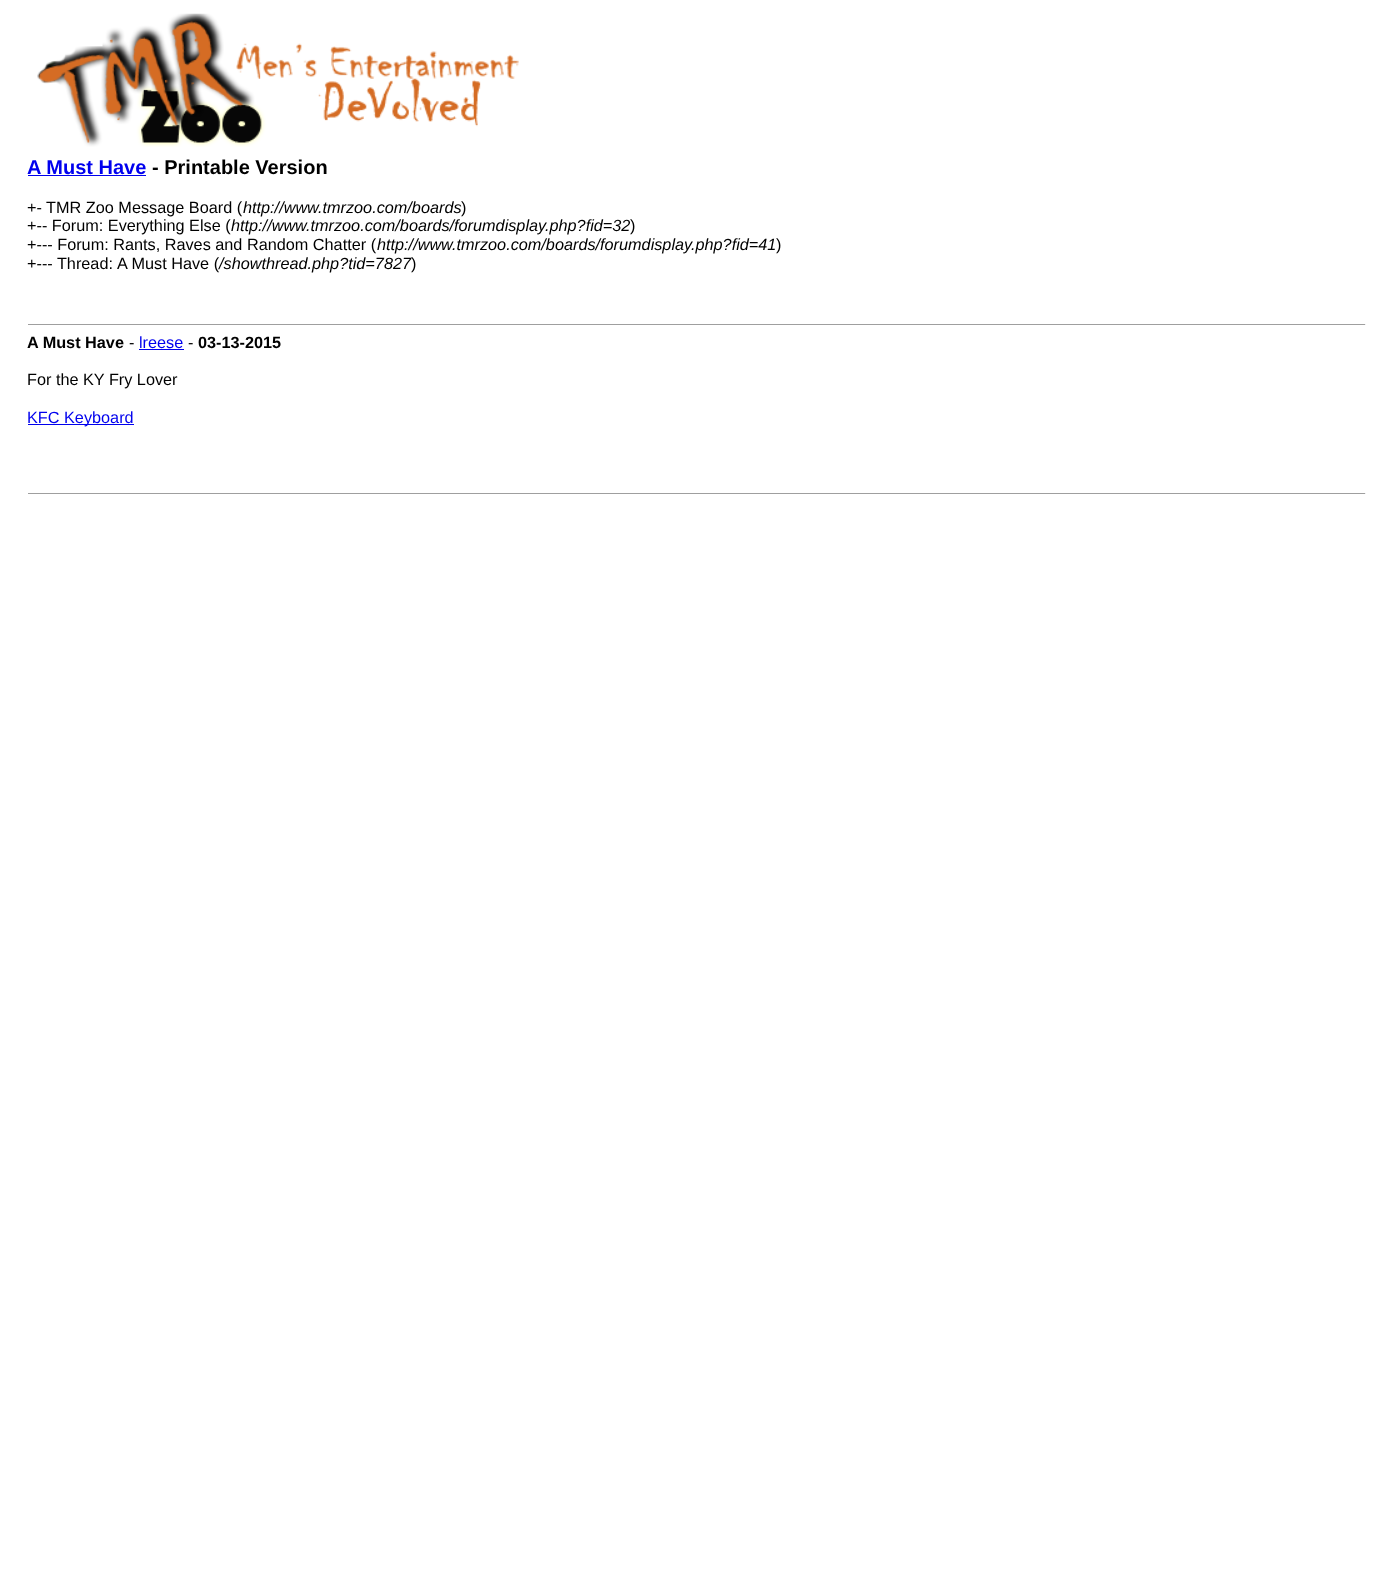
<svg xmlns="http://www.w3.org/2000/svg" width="1393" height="1589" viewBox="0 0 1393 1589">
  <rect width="100%" height="100%" fill="#fff"/>
  <image x="37" y="13" width="482" height="134" href="img/1.png"/>
  <path d="M28 175h118v1H28z" fill="#00e"/>
  <path d="M28 324h1338v1H28z" fill="#9f9f9f"/>
  <path d="M1365 324h1v1H1365z" fill="#eee"/>
  <path d="M139 349h45v1H139z" fill="#00e"/>
  <path d="M28 424h106v1H28z" fill="#00e"/>
  <path d="M28 493h1338v1H28z" fill="#9f9f9f"/>
  <path d="M1365 493h1v1H1365z" fill="#eee"/>
  <text x="27" y="174" font-family="Liberation Sans" font-size="20" font-weight="bold" fill="#00e">A Must Have</text>
  <text x="152" y="174" font-family="Liberation Sans" font-size="20" font-weight="bold" fill="#000">- Printable Version</text>
  <text x="27" y="213" font-family="Liberation Sans" font-size="16.25" fill="#000">+- TMR Zoo Message Board (</text>
  <text x="243" y="213" font-family="Liberation Sans" font-size="16.25" font-style="italic" fill="#000">http://www.tmrzoo.com/boards</text>
  <g font-family="Liberation Sans" font-size="16.25" fill="#000">
    <text x="461" y="213">)</text>
    <text x="27" y="231">+-- Forum: Everything Else (</text>
  </g>
  <text x="231" y="231" font-family="Liberation Sans" font-size="16.25" font-style="italic" fill="#000">http://www.tmrzoo.com/boards/forumdisplay.php?fid=32</text>
  <g font-family="Liberation Sans" font-size="16.25" fill="#000">
    <text x="630" y="231">)</text>
    <text x="27" y="250">+--- Forum: Rants, Raves and Random Chatter (</text>
  </g>
  <text x="377" y="250" font-family="Liberation Sans" font-size="16.25" font-style="italic" fill="#000">http://www.tmrzoo.com/boards/forumdisplay.php?fid=41</text>
  <g font-family="Liberation Sans" font-size="16.25" fill="#000">
    <text x="776" y="250">)</text>
    <text x="27" y="269">+--- Thread:</text>
    <text x="117" y="269">A Must Have (</text>
  </g>
  <text x="219" y="269" font-family="Liberation Sans" font-size="16.25" font-style="italic" fill="#000">/showthread.php?tid=7827</text>
  <text x="411" y="269" font-family="Liberation Sans" font-size="16.25" fill="#000">)</text>
  <text x="27" y="348" font-family="Liberation Sans" font-size="16.25" font-weight="bold" fill="#000">A Must Have</text>
  <text x="129" y="348" font-family="Liberation Sans" font-size="16.25" fill="#000">-</text>
  <text x="139" y="348" font-family="Liberation Sans" font-size="16.25" fill="#00e">lreese</text>
  <text x="188" y="348" font-family="Liberation Sans" font-size="16.25" fill="#000">-</text>
  <text x="198" y="348" font-family="Liberation Sans" font-size="16.25" font-weight="bold" fill="#000">03-13-2015</text>
  <text x="27" y="385" font-family="Liberation Sans" font-size="16.25" fill="#000">For the KY Fry Lover</text>
  <text x="27" y="423" font-family="Liberation Sans" font-size="16.25" fill="#00e">KFC Keyboard</text>
</svg>
